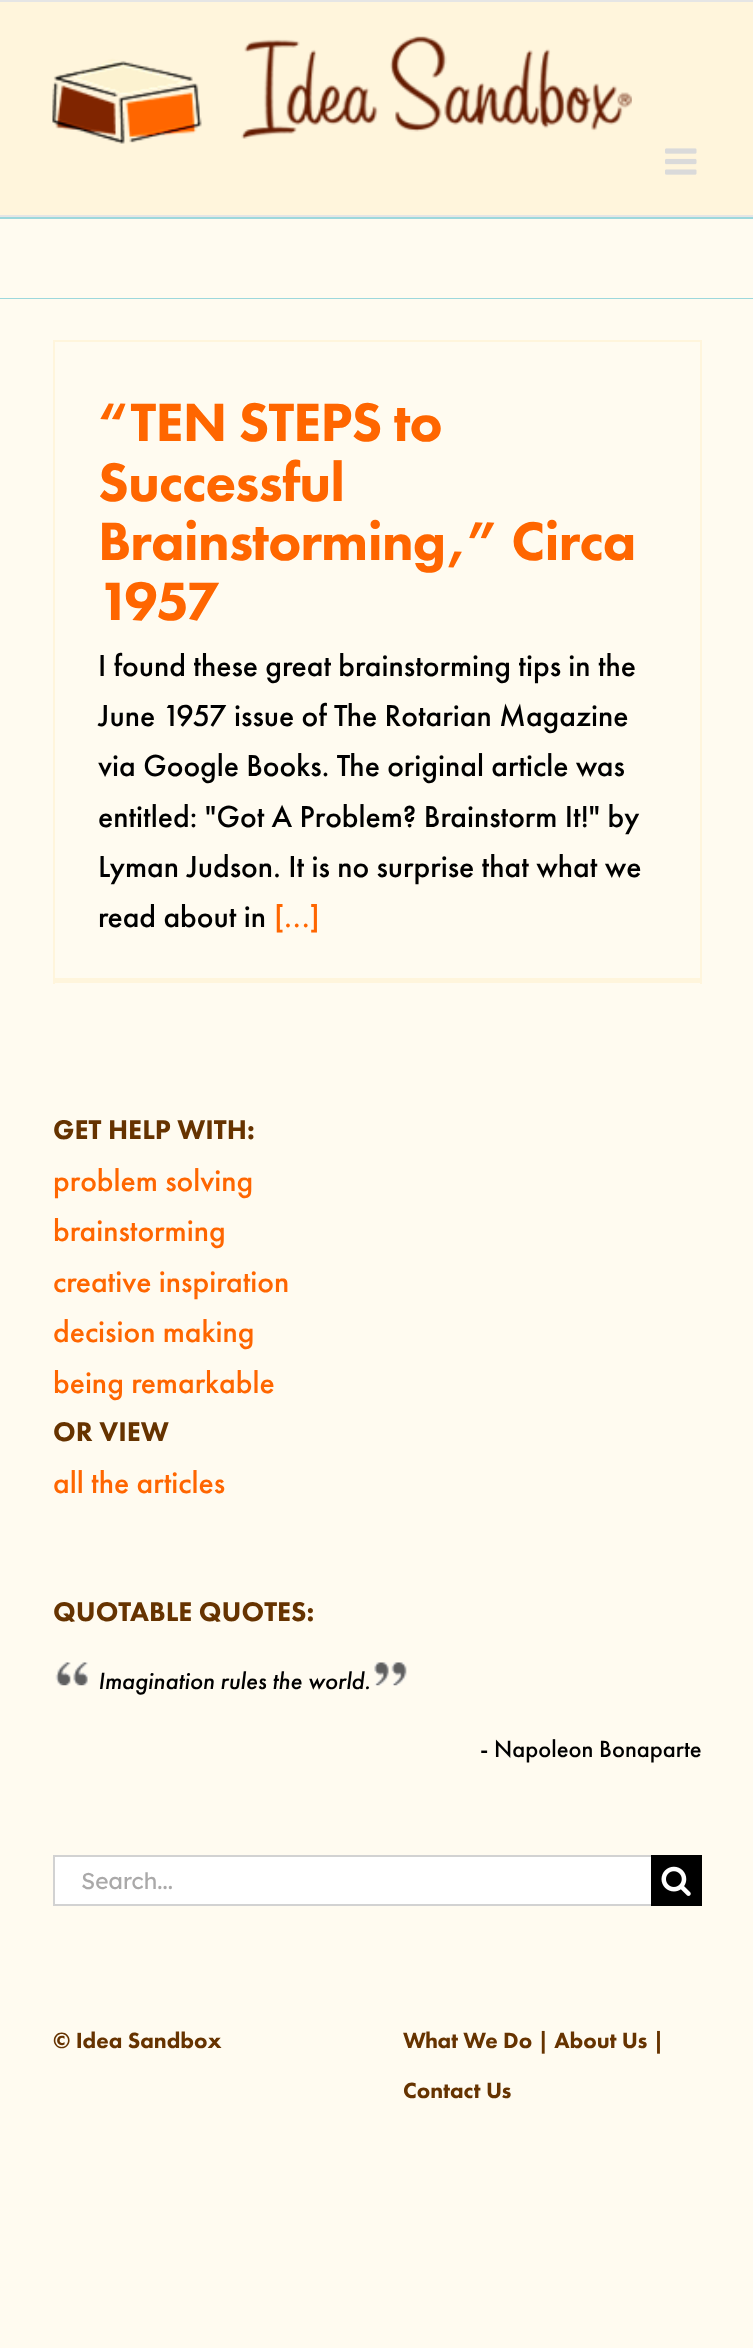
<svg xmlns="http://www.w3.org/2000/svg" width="753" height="2348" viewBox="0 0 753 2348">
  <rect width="100%" height="100%" fill="#fffbf0"/>
  <path d="M0 0h753v2H0z" fill="#e5e5e5"/>
  <path d="M0 2h753v213H0z" fill="#fff5dc"/>
  <path d="M0 215h753v2H0z" fill="#e5e5e5"/>
  <image x="52" y="36" width="580" height="108" href="img/1.png"/>
  <image x="665" y="148" width="32" height="27" href="img/2.png"/>
  <path d="M0 217h753v2H0z" fill="#9dd8dc"/>
  <path d="M0 298h753v1H0z" fill="#9dd8dc"/>
  <path d="M53 340h649v2H53z" fill="#fff5dc"/>
  <path d="M700 340h2v644H700z" fill="#fff5dc"/>
  <path d="M53 978h649v5H53z" fill="#fff5dc"/>
  <path d="M53 340h2v644H53z" fill="#fff5dc"/>
  <image x="55" y="1662" width="33" height="24" href="img/3.png"/>
  <image x="374" y="1662" width="33" height="24" href="img/4.png"/>
  <path d="M55 1857h596v47H55z" fill="#fff"/>
  <path d="M53 1855h598v2H53z" fill="#d2d2d2"/>
  <path d="M53 1904h598v2H53z" fill="#d2d2d2"/>
  <path d="M53 1855h2v51H53z" fill="#d2d2d2"/>
  <path d="M651 1855h51v51H651z" fill="#000"/>
  <image x="661" y="1866" width="30" height="30" href="img/5.png"/>
  <g font-family="Futura PT" font-size="56" font-weight="900" letter-spacing="-0.9" fill="#f60">
    <text x="98" y="441">“TEN STEPS to</text>
    <text x="98" y="501">Successful</text>
    <text x="98" y="560">Brainstorming,” Circa</text>
    <text x="98" y="620">1957</text>
  </g>
  <g font-family="Futura PT" font-size="31.5" font-weight="500" fill="#000">
    <text x="98" y="676">I found these great brainstorming tips in the</text>
    <text x="98" y="726">June 1957 issue of The Rotarian Magazine</text>
    <text x="98" y="776">via Google Books. The original article was</text>
    <text x="98" y="827">entitled: "Got A Problem? Brainstorm It!" by</text>
    <text x="98" y="877">Lyman Judson. It is no surprise that what we</text>
    <text x="98" y="927">read about in</text>
  </g>
  <text x="274" y="927" font-family="Futura PT" font-size="31.5" font-weight="500" fill="#f60">[...]</text>
  <text x="53" y="1139" font-family="Futura PT" font-size="28" font-weight="900" fill="#630">GET HELP WITH:</text>
  <g font-family="Futura PT" font-size="31.5" font-weight="500" fill="#f60">
    <text x="53" y="1191">problem solving</text>
    <text x="53" y="1241">brainstorming</text>
    <text x="53" y="1292">creative inspiration</text>
    <text x="53" y="1342">decision making</text>
    <text x="53" y="1393">being remarkable</text>
  </g>
  <text x="53" y="1441" font-family="Futura PT" font-size="28" font-weight="900" fill="#630">OR VIEW</text>
  <text x="53" y="1493" font-family="Futura PT" font-size="31.5" font-weight="500" fill="#f60">all the articles</text>
  <text x="53" y="1621" font-family="Futura PT" font-size="28" font-weight="900" fill="#630">QUOTABLE QUOTES:</text>
  <text x="98" y="1689" font-family="Futura PT" font-size="24.5" font-weight="500" font-style="italic" fill="#000">Imagination rules the world.</text>
  <text x="480" y="1757" font-family="Futura PT" font-size="24.5" font-weight="500" fill="#000">- Napoleon Bonaparte</text>
  <text x="81" y="1889" font-family="Lexend Deca" font-size="22.75" fill="#aaa9a9">Search...</text>
  <g font-family="Futura PT" font-size="22.75" font-weight="900" fill="#630">
    <text x="53" y="2048">© Idea Sandbox</text>
    <text x="403" y="2048">What We Do | About Us |</text>
    <text x="403" y="2098">Contact Us</text>
  </g>
</svg>
